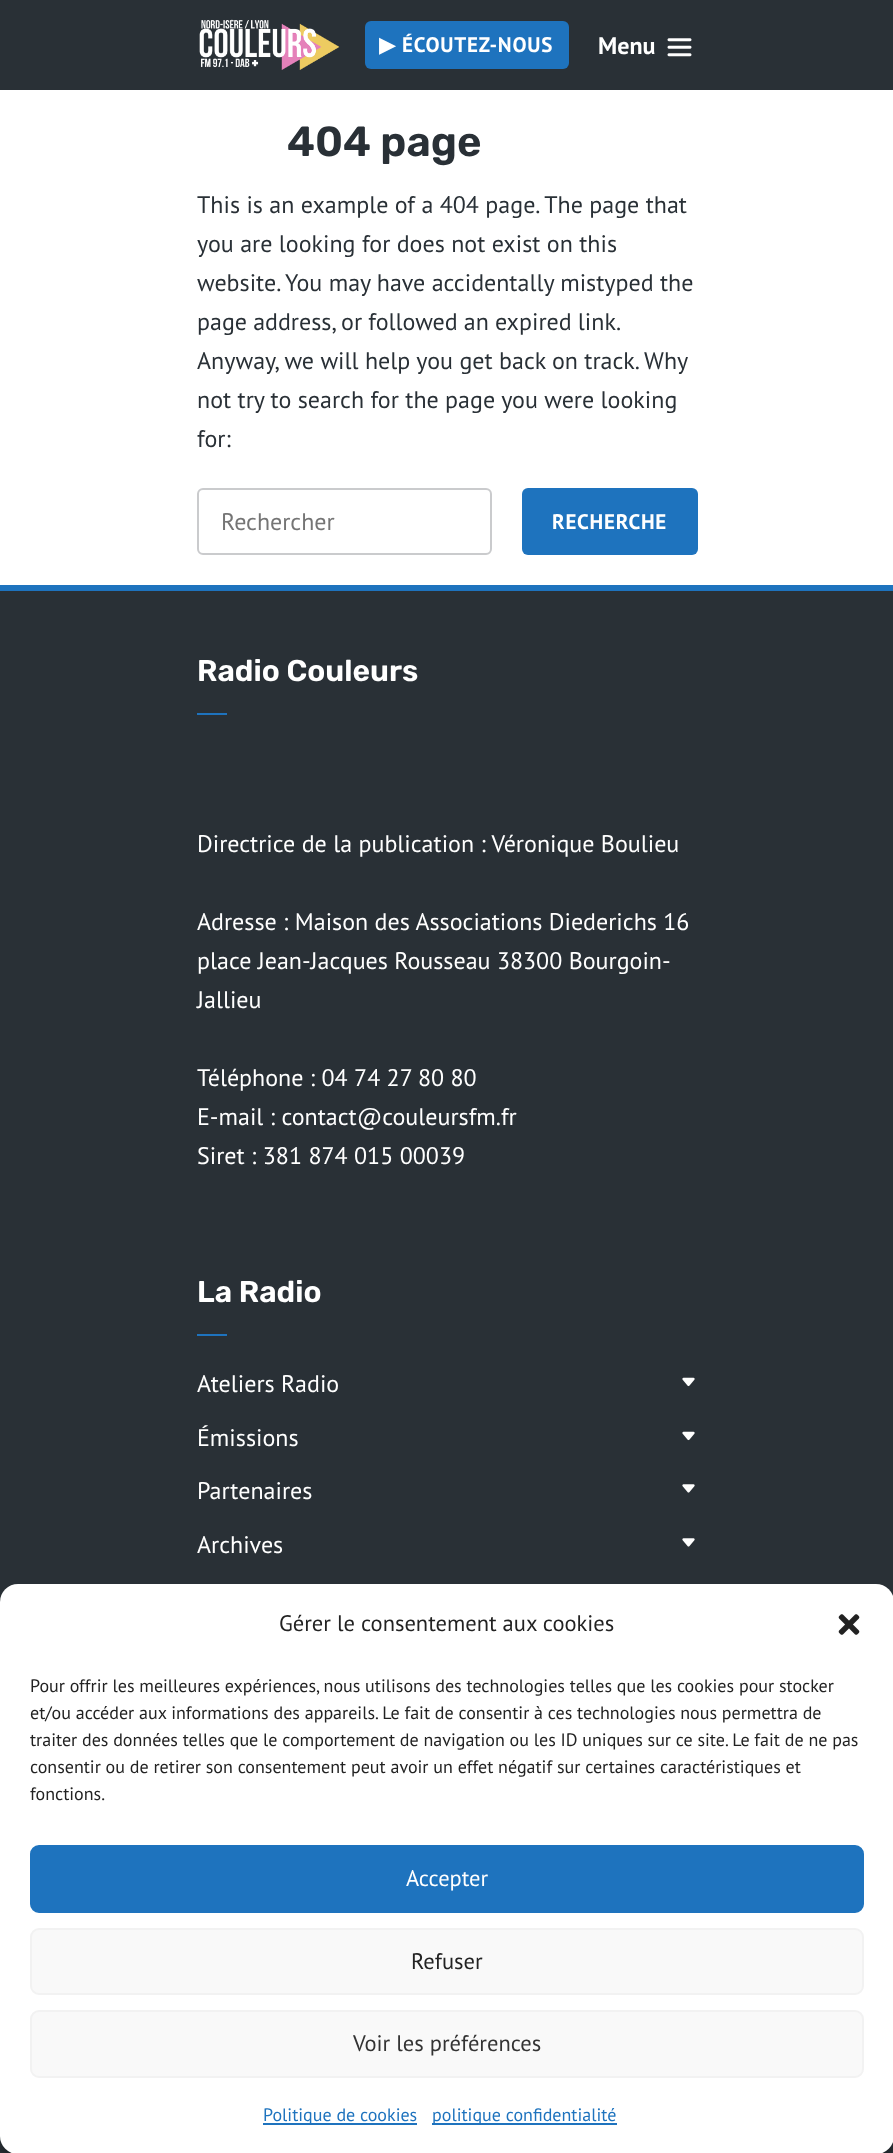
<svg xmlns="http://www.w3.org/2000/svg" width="893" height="2153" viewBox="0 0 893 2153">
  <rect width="100%" height="100%" fill="#fff"/>
  <path d="M0 0h893v90H0z" fill="#293036"/>
  <image x="199" y="19" width="141" height="51" href="img/1.png"/>
  <rect x="365" y="21" width="204" height="48" rx="6" fill="#1e73be"/>
  <image x="667" y="38" width="25" height="19" href="img/2.png"/>
  <rect x="198" y="489" width="293" height="65" rx="5" fill="none" stroke="#cacbcd" stroke-width="2"/>
  <rect x="522" y="488" width="176" height="67" rx="6" fill="#1e73be"/>
  <path d="M0 591h893v1562H0z" fill="#293036"/>
  <path d="M0 585h893v6H0z" fill="#1e73be"/>
  <path d="M197 713h30v2H197z" fill="#1e73be"/>
  <path d="M197 1334h30v2H197z" fill="#1e73be"/>
  <image x="682" y="1377" width="13" height="10" href="img/3.png"/>
  <image x="682" y="1431" width="13" height="10" href="img/3.png"/>
  <image x="682" y="1484" width="13" height="9" href="img/4.png"/>
  <image x="682" y="1538" width="13" height="9" href="img/4.png"/>
  <rect y="1593" width="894" height="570" rx="18" fill="#0000003b" filter="blur(4.5px)"/>
  <rect y="1584" width="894" height="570" rx="18" fill="#fff"/>
  <image x="838" y="1614" width="22" height="21" href="img/5.png"/>
  <rect x="31" y="1846" width="832" height="66" rx="8" fill="#1e73be" stroke="#1e73be" stroke-width="2"/>
  <rect x="31" y="1929" width="832" height="65" rx="8" fill="#f9f9f9" stroke="#f2f2f2" stroke-width="2"/>
  <rect x="31" y="2011" width="832" height="66" rx="8" fill="#f9f9f9" stroke="#f2f2f2" stroke-width="2"/>
  <path d="M263 2123h154v2H263z" fill="#1e73be"/>
  <path d="M432 2123h185v2H432z" fill="#1e73be"/>
  <text x="379" y="52" font-family="DejaVu Sans" font-size="21" font-weight="bold" letter-spacing="0.75" fill="#fff">▶︎</text>
  <text x="402" y="52" font-family="PT Sans" font-size="21" font-weight="bold" letter-spacing="0.75" fill="#fff">ÉCOUTEZ-NOUS</text>
  <text x="598" y="54" font-family="PT Sans" font-size="24" font-weight="bold" fill="#fff">Menu</text>
  <text x="287" y="156" font-family="Rubik" font-size="42" font-weight="600" fill="#293036">404 page</text>
  <g font-family="PT Sans" font-size="24" fill="#293036">
    <text x="197" y="213">This is an example of a 404 page. The page that</text>
    <text x="197" y="252">you are looking for does not exist on this</text>
    <text x="197" y="291">website. You may have accidentally mistyped the</text>
    <text x="197" y="330" word-spacing="-0.25">page address, or followed an expired link.</text>
    <text x="197" y="369">Anyway, we will help you get back on track. Why</text>
    <text x="197" y="408">not try to search for the page you were looking</text>
    <text x="197" y="447">for:</text>
  </g>
  <text x="221" y="530" font-family="PT Sans" font-size="24" fill="#757575">Rechercher</text>
  <text x="552" y="529" font-family="PT Sans" font-size="21" font-weight="bold" letter-spacing="0.75" fill="#fff">RECHERCHE</text>
  <text x="197" y="681" font-family="Rubik" font-size="30" font-weight="600" fill="#fff">Radio Couleurs</text>
  <g font-family="PT Sans" font-size="24" fill="#fff">
    <text x="197" y="852">Directrice de la publication : Véronique Boulieu</text>
    <text x="197" y="930">Adresse : Maison des Associations Diederichs 16</text>
    <text x="197" y="969">place Jean-Jacques Rousseau 38300 Bourgoin-</text>
    <text x="197" y="1008">Jallieu</text>
    <text x="197" y="1086">Téléphone : 04 74 27 80 80</text>
    <text x="197" y="1125">E-mail : contact@couleursfm.fr</text>
    <text x="197" y="1164">Siret : 381 874 015 00039</text>
  </g>
  <text x="197" y="1302" font-family="Rubik" font-size="30" font-weight="600" fill="#fff">La Radio</text>
  <g font-family="PT Sans" font-size="24" fill="#fff">
    <text x="197" y="1392">Ateliers Radio</text>
    <text x="197" y="1446">Émissions</text>
    <text x="197" y="1499">Partenaires</text>
    <text x="197" y="1553">Archives</text>
  </g>
  <text x="279" y="1631" font-family="PT Sans" font-size="22.5" fill="#222">Gérer le consentement aux cookies</text>
  <g font-family="PT Sans" font-size="18" fill="#222">
    <text x="30" y="1692">Pour offrir les meilleures expériences, nous utilisons des technologies telles que les cookies pour stocker</text>
    <text x="30" y="1719">et/ou accéder aux informations des appareils. Le fait de consentir à ces technologies nous permettra de</text>
    <text x="30" y="1746">traiter des données telles que le comportement de navigation ou les ID uniques sur ce site. Le fait de ne pas</text>
    <text x="30" y="1773">consentir ou de retirer son consentement peut avoir un effet négatif sur certaines caractéristiques et</text>
    <text x="30" y="1800">fonctions.</text>
  </g>
  <text x="406" y="1886" font-family="PT Sans" font-size="22.5" fill="#fff">Accepter</text>
  <text x="411" y="1969" font-family="PT Sans" font-size="22.5" fill="#222">Refuser</text>
  <text x="353" y="2051" font-family="PT Sans" font-size="22.5" fill="#333">Voir les préférences</text>
  <g font-family="PT Sans" font-size="18" fill="#1e73be">
    <text x="263" y="2121">Politique de cookies</text>
    <text x="432" y="2121">politique confidentialité</text>
  </g>
</svg>
